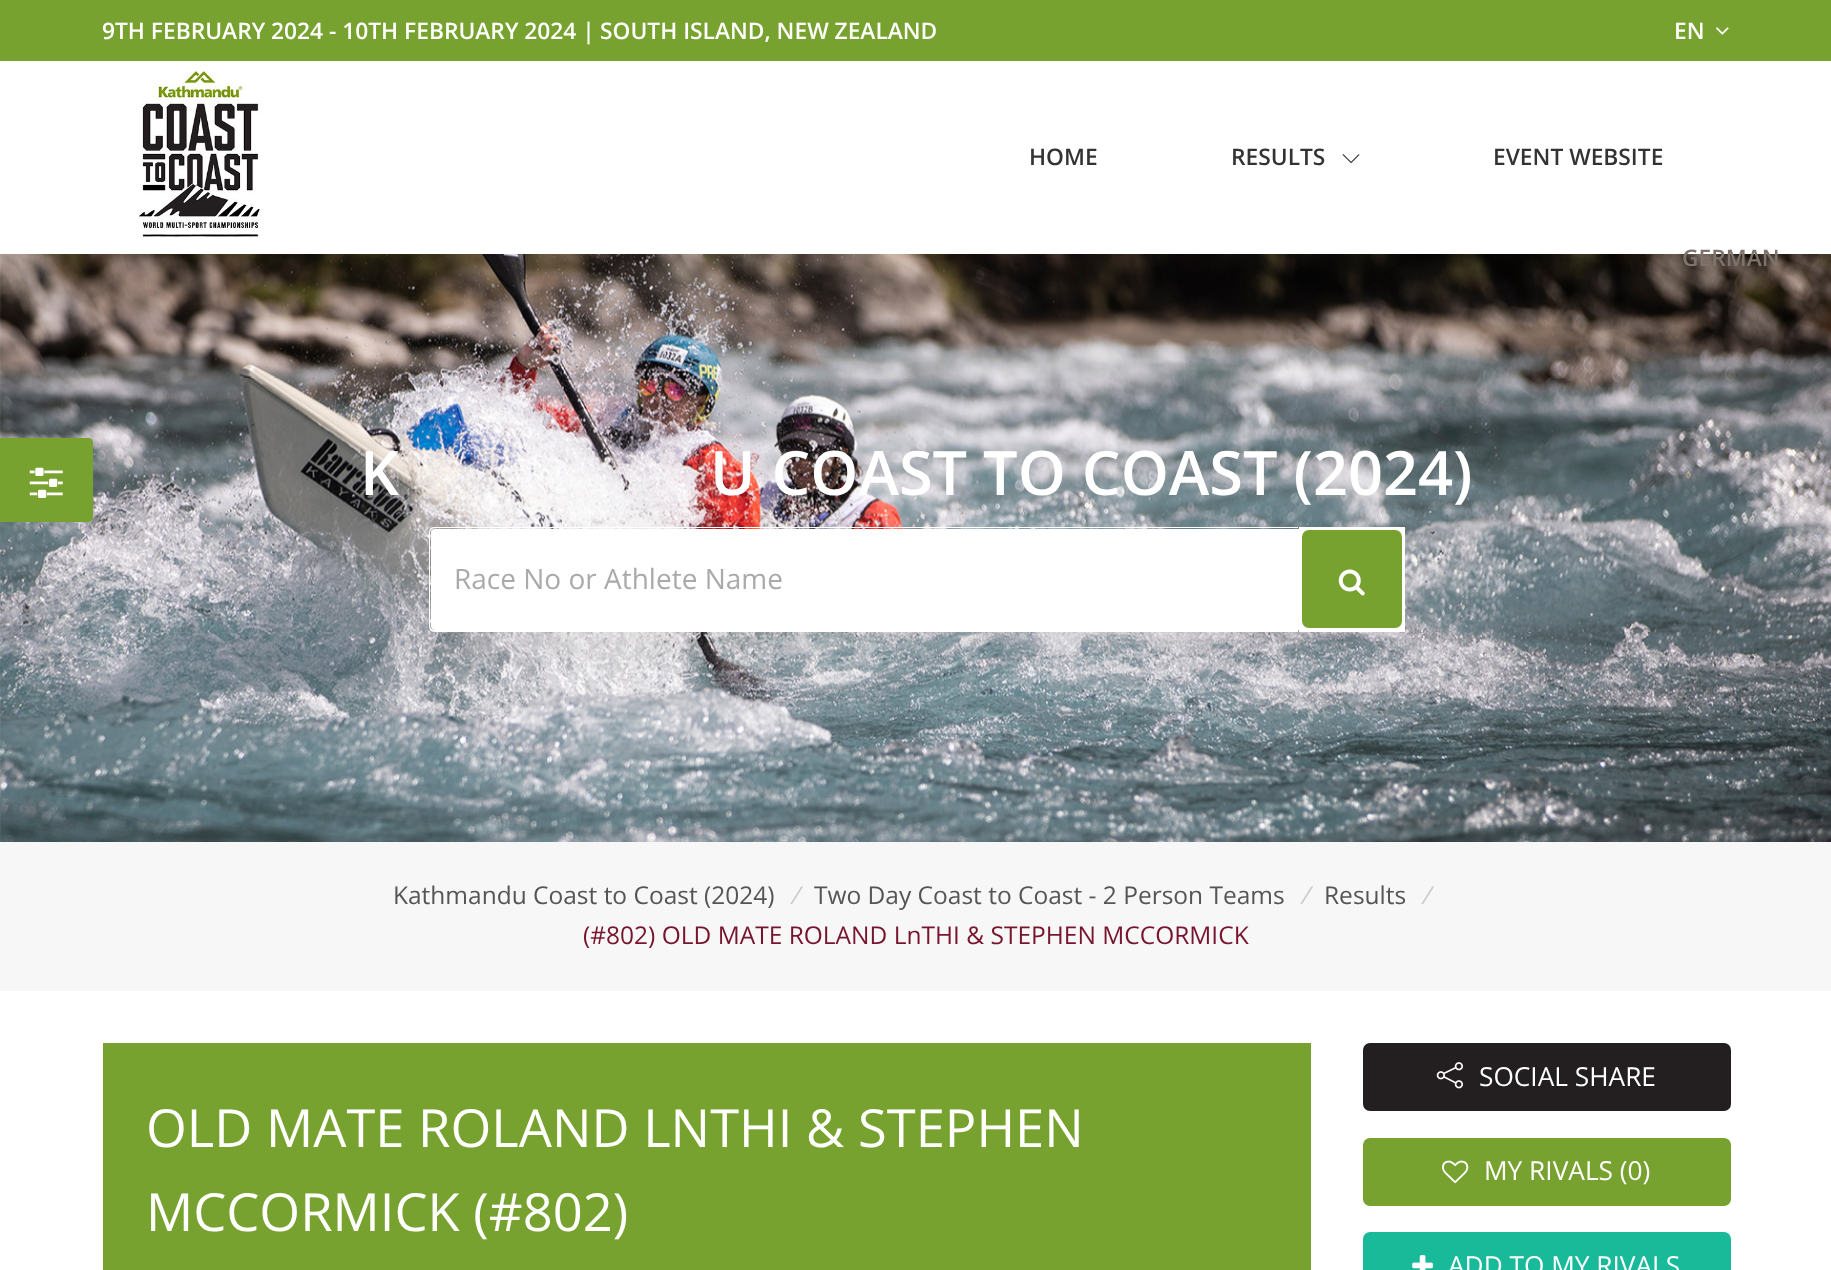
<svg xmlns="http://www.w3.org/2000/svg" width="1831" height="1270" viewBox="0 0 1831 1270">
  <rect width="100%" height="100%" fill="#fff"/>
  <path d="M0 0h1831v61H0z" fill="#78a22f"/>
  <image x="1716" y="27" width="13" height="8" href="img/1.png"/>
  <image x="138" y="70" width="123" height="168" href="img/2.png"/>
  <image x="1342" y="154" width="18" height="9" href="img/3.png"/>
  <image x="0" y="254" width="1831" height="588" href="img/5.png"/>
  <path d="M0 438H88C91 438 93 440 93 443V517C93 520 91 522 88 522H0Z" fill="#78a22f"/>
  <image x="29" y="467" width="34" height="31" href="img/4.png"/>
  <path d="M450 583h934v63H450z" fill="#00000017" filter="blur(22px)"/>
  <path d="M435 529H1299V630H435C433 630 431 628 431 626V533C431 531 433 529 435 529Z" fill="#fff"/>
  <path d="M435 527H1298V632H435C431 632 429 629 429 626V533C429 529 431 527 435 527ZM435 528H1298V630H435C432 630 430 628 430 626V533C430 530 432 528 435 528Z" fill="#fff" fill-rule="evenodd"/>
  <path d="M1299 527h106v105H1299z" fill="#fff"/>
  <rect x="1302" y="530" width="100" height="98" rx="7" fill="#78a22f"/>
  <image x="1338" y="569" width="27" height="27" href="img/6.png"/>
  <path d="M0 842h1831v149H0z" fill="#f7f7f7"/>
  <path d="M103 1043h1208v227H103z" fill="#78a22f"/>
  <rect x="1363" y="1043" width="368" height="68" rx="7" fill="#231f20"/>
  <image x="1436" y="1062" width="27" height="27" href="img/7.png"/>
  <rect x="1363" y="1138" width="368" height="68" rx="7" fill="#78a22f"/>
  <image x="1442" y="1160" width="27" height="24" href="img/8.png"/>
  <rect x="1363" y="1232" width="368" height="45" rx="7" fill="#19ba9a"/>
  <image x="1412" y="1255" width="21" height="15" href="img/9.png"/>
  <g font-family="Open Sans" font-size="22.75" font-weight="600" fill="#fff">
    <text x="102" y="39">9TH FEBRUARY 2024 - 10TH FEBRUARY 2024 |</text>
    <text x="600" y="39">SOUTH ISLAND, NEW ZEALAND</text>
    <text x="1674" y="39">EN</text>
  </g>
  <text x="1682" y="266" font-family="Open Sans" font-size="22.75" font-weight="600" fill="#7d746e">GERMAN</text>
  <g font-family="Open Sans" font-size="22.75" font-weight="600" fill="#333">
    <text x="1029" y="165">HOME</text>
    <text x="1231" y="165">RESULTS</text>
    <text x="1493" y="165">EVENT WEBSITE</text>
  </g>
  <g font-family="Open Sans" font-size="61.25" font-weight="600" fill="#fff">
    <text x="360" y="495">K</text>
    <text x="710" y="495">U COAST TO COAST (2024)</text>
  </g>
  <text x="454" y="589" font-family="Open Sans" font-size="28" fill="#aaa">Race No or Athlete Name</text>
  <text x="393" y="904" font-family="Open Sans" font-size="24.5" fill="#555">Kathmandu Coast to Coast (2024)</text>
  <text x="790" y="904" font-family="Open Sans" font-size="24.5" font-style="italic" fill="#ccc">/</text>
  <text x="814" y="904" font-family="Open Sans" font-size="24.5" fill="#555">Two Day Coast to Coast - 2 Person Teams</text>
  <text x="1300" y="904" font-family="Open Sans" font-size="24.5" font-style="italic" fill="#ccc">/</text>
  <text x="1324" y="904" font-family="Open Sans" font-size="24.5" fill="#555">Results</text>
  <text x="1421" y="904" font-family="Open Sans" font-size="24.5" font-style="italic" fill="#ccc">/</text>
  <text x="583" y="944" font-family="Open Sans" font-size="24.5" fill="#77142e">(#802) OLD MATE ROLAND LnTHI &amp; STEPHEN MCCORMICK</text>
  <g font-family="Open Sans" font-size="52.5" fill="#fff">
    <text x="146" y="1147">OLD MATE ROLAND LNTHI &amp; STEPHEN</text>
    <text x="146" y="1231">MCCORMICK (#802)</text>
  </g>
  <g font-family="Open Sans" font-size="26.25" fill="#fff">
    <text x="1479" y="1086">SOCIAL SHARE</text>
    <text x="1484" y="1180">MY RIVALS (0)</text>
    <text x="1448" y="1275">ADD TO MY RIVALS</text>
  </g>
</svg>
